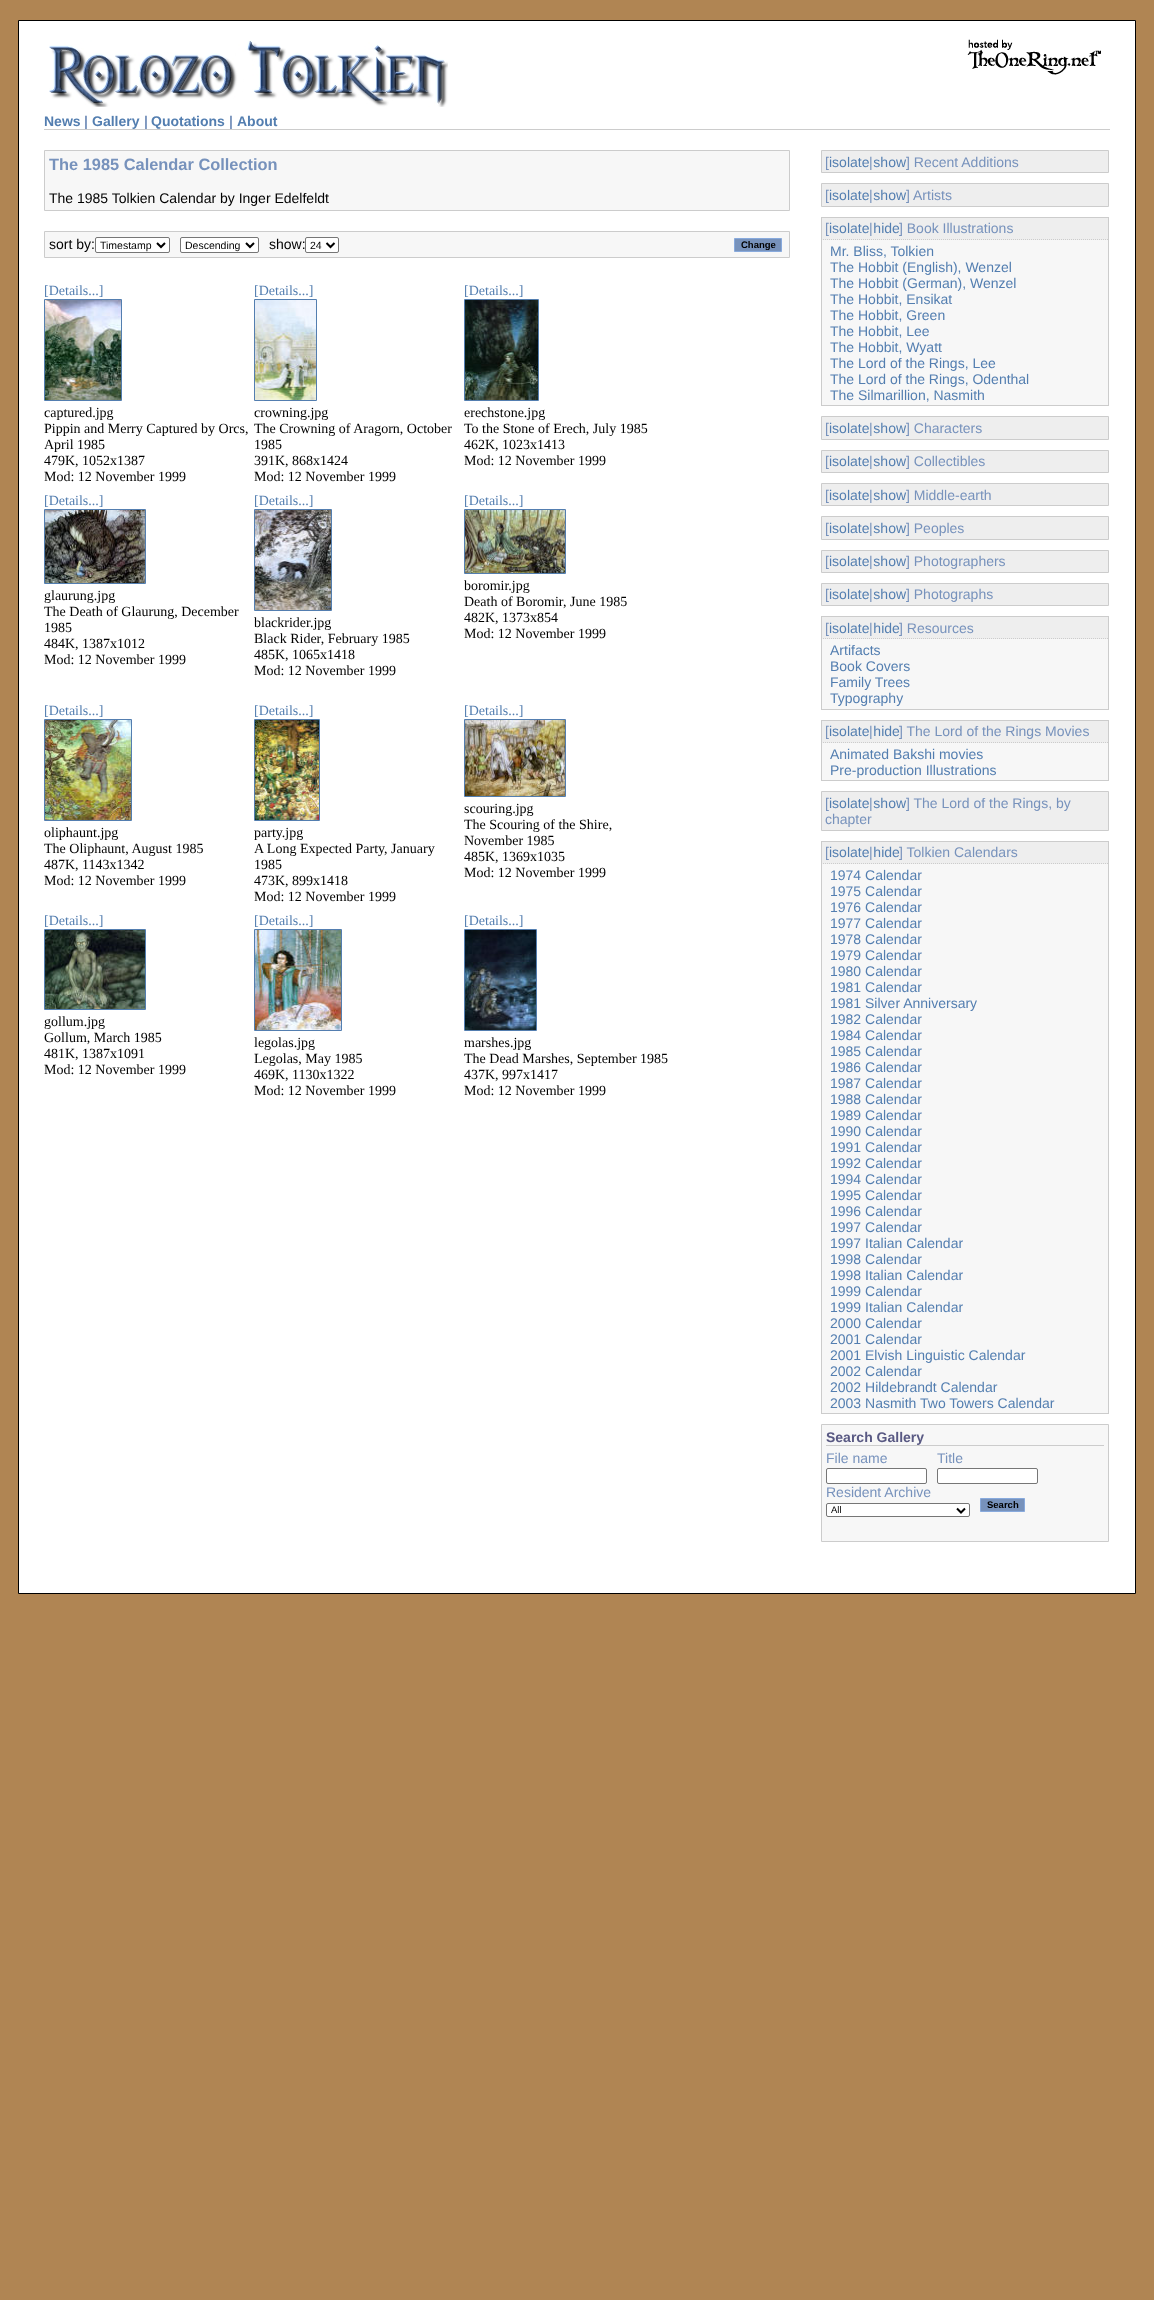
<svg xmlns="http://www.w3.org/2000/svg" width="1154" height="2300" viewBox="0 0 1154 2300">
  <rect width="100%" height="100%" fill="#b08553"/>
  <path d="M18.5 20.5h1117v1573H18.5z" fill="#fff" stroke="#000"/>
  <image x="49" y="40" width="399" height="67" href="img/1.png"/>
  <image x="967" y="39" width="134" height="36" href="img/2.png"/>
  <path d="M44 129h1066v1H44z" fill="#ccc"/>
  <path d="M44.5 150.5h745v60H44.5z" fill="#f7f7f7" stroke="#ccc"/>
  <path d="M44.5 231.5h745v26H44.5z" fill="#f7f7f7" stroke="#ccc"/>
  <rect x="95.5" y="237.5" width="74" height="15" rx="1.5" fill="#fff" stroke="#767676"/>
  <path d="M157 243L161 247L165 243" fill="none" stroke="#000" stroke-width="2"/>
  <rect x="180.5" y="237.5" width="78" height="15" rx="1.5" fill="#fff" stroke="#767676"/>
  <path d="M246 243L250 247L254 243" fill="none" stroke="#000" stroke-width="2"/>
  <rect x="305.5" y="237.5" width="33" height="15" rx="1.5" fill="#fff" stroke="#767676"/>
  <path d="M326.5 243L330.5 247L334.5 243" fill="none" stroke="#000" stroke-width="2"/>
  <path d="M734.5 238.5h47v13H734.5z" fill="#7792bc" stroke="#8ad"/>
  <path d="M44.5 299.5h77v101H44.5z" fill="none" stroke="#537eb0"/>
  <image x="45" y="300" width="76" height="100" href="img/3.png"/>
  <path d="M254.5 299.5h62v101H254.5z" fill="none" stroke="#537eb0"/>
  <image x="255" y="300" width="61" height="100" href="img/4.png"/>
  <path d="M464.5 299.5h74v101H464.5z" fill="none" stroke="#537eb0"/>
  <image x="465" y="300" width="73" height="100" href="img/5.png"/>
  <path d="M44.5 509.5h101v74H44.5z" fill="none" stroke="#537eb0"/>
  <image x="45" y="510" width="100" height="73" href="img/6.png"/>
  <path d="M254.5 509.5h77v101H254.5z" fill="none" stroke="#537eb0"/>
  <image x="255" y="510" width="76" height="100" href="img/7.png"/>
  <path d="M464.5 509.5h101v64H464.5z" fill="none" stroke="#537eb0"/>
  <image x="465" y="510" width="100" height="63" href="img/8.png"/>
  <path d="M44.5 719.5h87v101H44.5z" fill="none" stroke="#537eb0"/>
  <image x="45" y="720" width="86" height="100" href="img/9.png"/>
  <path d="M254.5 719.5h65v101H254.5z" fill="none" stroke="#537eb0"/>
  <image x="255" y="720" width="64" height="100" href="img/10.png"/>
  <path d="M464.5 719.5h101v77H464.5z" fill="none" stroke="#537eb0"/>
  <image x="465" y="720" width="100" height="76" href="img/11.png"/>
  <path d="M44.5 929.5h101v80H44.5z" fill="none" stroke="#537eb0"/>
  <image x="45" y="930" width="100" height="79" href="img/12.png"/>
  <path d="M254.5 929.5h87v101H254.5z" fill="none" stroke="#537eb0"/>
  <image x="255" y="930" width="86" height="100" href="img/13.png"/>
  <path d="M464.5 929.5h72v101H464.5z" fill="none" stroke="#537eb0"/>
  <image x="465" y="930" width="71" height="100" href="img/14.png"/>
  <path d="M821.5 150.5h287v22H821.5z" fill="#eee" stroke="#ccc"/>
  <path d="M821.5 183.5h287v23H821.5z" fill="#eee" stroke="#ccc"/>
  <path d="M822 218h286v22H822z" fill="#eee"/>
  <path d="M821 217h288v1H821z" fill="#ccc"/>
  <path d="M1108 217h1v189H1108z" fill="#ccc"/>
  <path d="M821 239.5H1109" fill="none" stroke="#ccc" stroke-dasharray="1 1"/>
  <path d="M821 217h1v23H821z" fill="#ccc"/>
  <path d="M822 240h286v165H822z" fill="#f7f7f7"/>
  <path d="M821 405h288v1H821z" fill="#ccc"/>
  <path d="M821 240h1v166H821z" fill="#ccc"/>
  <path d="M821.5 416.5h287v23H821.5z" fill="#eee" stroke="#ccc"/>
  <path d="M821.5 450.5h287v22H821.5z" fill="#eee" stroke="#ccc"/>
  <path d="M821.5 483.5h287v22H821.5z" fill="#eee" stroke="#ccc"/>
  <path d="M821.5 516.5h287v23H821.5z" fill="#eee" stroke="#ccc"/>
  <path d="M821.5 550.5h287v22H821.5z" fill="#eee" stroke="#ccc"/>
  <path d="M821.5 583.5h287v22H821.5z" fill="#eee" stroke="#ccc"/>
  <path d="M822 617h286v22H822z" fill="#eee"/>
  <path d="M821 616h288v1H821z" fill="#ccc"/>
  <path d="M1108 616h1v94H1108z" fill="#ccc"/>
  <path d="M821 638.5H1109" fill="none" stroke="#ccc" stroke-dasharray="1 1"/>
  <path d="M821 616h1v23H821z" fill="#ccc"/>
  <path d="M822 639h286v70H822z" fill="#f7f7f7"/>
  <path d="M821 709h288v1H821z" fill="#ccc"/>
  <path d="M821 639h1v71H821z" fill="#ccc"/>
  <path d="M822 721h286v22H822z" fill="#eee"/>
  <path d="M821 720h288v1H821z" fill="#ccc"/>
  <path d="M1108 720h1v61H1108z" fill="#ccc"/>
  <path d="M821 742.5H1109" fill="none" stroke="#ccc" stroke-dasharray="1 1"/>
  <path d="M821 720h1v23H821z" fill="#ccc"/>
  <path d="M822 743h286v37H822z" fill="#f7f7f7"/>
  <path d="M821 780h288v1H821z" fill="#ccc"/>
  <path d="M821 743h1v38H821z" fill="#ccc"/>
  <path d="M821.5 791.5h287v39H821.5z" fill="#eee" stroke="#ccc"/>
  <path d="M822 842h286v22H822z" fill="#eee"/>
  <path d="M821 841h288v1H821z" fill="#ccc"/>
  <path d="M1108 841h1v573H1108z" fill="#ccc"/>
  <path d="M821 863.5H1109" fill="none" stroke="#ccc" stroke-dasharray="1 1"/>
  <path d="M821 841h1v23H821z" fill="#ccc"/>
  <path d="M822 864h286v549H822z" fill="#f7f7f7"/>
  <path d="M821 1413h288v1H821z" fill="#ccc"/>
  <path d="M821 864h1v550H821z" fill="#ccc"/>
  <path d="M821.5 1424.5h287v117H821.5z" fill="#f7f7f7" stroke="#ccc"/>
  <path d="M826 1445h278v1H826z" fill="#ccc"/>
  <rect x="826.5" y="1468.5" width="100" height="15" rx="1.5" fill="#fff" stroke="#767676"/>
  <rect x="937.5" y="1468.5" width="100" height="15" rx="1.5" fill="#fff" stroke="#767676"/>
  <rect x="826.5" y="1503.5" width="143" height="13" rx="1.5" fill="#fff" stroke="#767676"/>
  <path d="M957 1508.5L961 1512.5L965 1508.5" fill="none" stroke="#000" stroke-width="2"/>
  <path d="M980.5 1498.5h44v13H980.5z" fill="#7792bc" stroke="#8ad"/>
  <text x="44" y="126" font-family="Liberation Sans" font-size="14" font-weight="bold" fill="#537eb0">News</text>
  <text x="84" y="126" font-family="Liberation Sans" font-size="14" font-weight="bold" fill="#7792bc">|</text>
  <text x="92" y="126" font-family="Liberation Sans" font-size="14" font-weight="bold" fill="#537eb0">Gallery</text>
  <text x="144" y="126" font-family="Liberation Sans" font-size="14" font-weight="bold" fill="#7792bc">|</text>
  <text x="151" y="126" font-family="Liberation Sans" font-size="14" font-weight="bold" fill="#537eb0">Quotations</text>
  <text x="229" y="126" font-family="Liberation Sans" font-size="14" font-weight="bold" fill="#7792bc">|</text>
  <text x="237" y="126" font-family="Liberation Sans" font-size="14" font-weight="bold" fill="#537eb0">About</text>
  <text x="49" y="170" font-family="Liberation Sans" font-size="16.4" font-weight="bold" fill="#7792bc">The 1985 Calendar Collection</text>
  <g font-family="Liberation Sans" font-size="14" fill="#000">
    <text x="49" y="203">The 1985 Tolkien Calendar by Inger Edelfeldt</text>
    <text x="49" y="249">sort by:</text>
  </g>
  <g font-family="Liberation Sans" font-size="10.5" fill="#000">
    <text x="100" y="249">Timestamp</text>
    <text x="185" y="249">Descending</text>
  </g>
  <text x="269" y="249" font-family="Liberation Sans" font-size="14" fill="#000">show:</text>
  <text x="310" y="249" font-family="Liberation Sans" font-size="10.5" fill="#000">24</text>
  <text x="741" y="248" font-family="Liberation Sans" font-size="9.5" font-weight="bold" fill="#000">Change</text>
  <text x="44" y="295" font-family="Liberation Serif" font-size="14" fill="#537eb0">[Details...]</text>
  <g font-family="Liberation Serif" font-size="14" fill="#000">
    <text x="44" y="417">captured.jpg</text>
    <text x="44" y="433">Pippin and Merry Captured by Orcs,</text>
    <text x="44" y="449">April 1985</text>
    <text x="44" y="465">479K, 1052x1387</text>
    <text x="44" y="481">Mod: 12 November 1999</text>
  </g>
  <text x="254" y="295" font-family="Liberation Serif" font-size="14" fill="#537eb0">[Details...]</text>
  <g font-family="Liberation Serif" font-size="14" fill="#000">
    <text x="254" y="417">crowning.jpg</text>
    <text x="254" y="433">The Crowning of Aragorn, October</text>
    <text x="254" y="449">1985</text>
    <text x="254" y="465">391K, 868x1424</text>
    <text x="254" y="481">Mod: 12 November 1999</text>
  </g>
  <text x="464" y="295" font-family="Liberation Serif" font-size="14" fill="#537eb0">[Details...]</text>
  <g font-family="Liberation Serif" font-size="14" fill="#000">
    <text x="464" y="417">erechstone.jpg</text>
    <text x="464" y="433">To the Stone of Erech, July 1985</text>
    <text x="464" y="449">462K, 1023x1413</text>
    <text x="464" y="465">Mod: 12 November 1999</text>
  </g>
  <text x="44" y="505" font-family="Liberation Serif" font-size="14" fill="#537eb0">[Details...]</text>
  <g font-family="Liberation Serif" font-size="14" fill="#000">
    <text x="44" y="600">glaurung.jpg</text>
    <text x="44" y="616">The Death of Glaurung, December</text>
    <text x="44" y="632">1985</text>
    <text x="44" y="648">484K, 1387x1012</text>
    <text x="44" y="664">Mod: 12 November 1999</text>
  </g>
  <text x="254" y="505" font-family="Liberation Serif" font-size="14" fill="#537eb0">[Details...]</text>
  <g font-family="Liberation Serif" font-size="14" fill="#000">
    <text x="254" y="627">blackrider.jpg</text>
    <text x="254" y="643">Black Rider, February 1985</text>
    <text x="254" y="659">485K, 1065x1418</text>
    <text x="254" y="675">Mod: 12 November 1999</text>
  </g>
  <text x="464" y="505" font-family="Liberation Serif" font-size="14" fill="#537eb0">[Details...]</text>
  <g font-family="Liberation Serif" font-size="14" fill="#000">
    <text x="464" y="590">boromir.jpg</text>
    <text x="464" y="606">Death of Boromir, June 1985</text>
    <text x="464" y="622">482K, 1373x854</text>
    <text x="464" y="638">Mod: 12 November 1999</text>
  </g>
  <text x="44" y="715" font-family="Liberation Serif" font-size="14" fill="#537eb0">[Details...]</text>
  <g font-family="Liberation Serif" font-size="14" fill="#000">
    <text x="44" y="837">oliphaunt.jpg</text>
    <text x="44" y="853">The Oliphaunt, August 1985</text>
    <text x="44" y="869">487K, 1143x1342</text>
    <text x="44" y="885">Mod: 12 November 1999</text>
  </g>
  <text x="254" y="715" font-family="Liberation Serif" font-size="14" fill="#537eb0">[Details...]</text>
  <g font-family="Liberation Serif" font-size="14" fill="#000">
    <text x="254" y="837">party.jpg</text>
    <text x="254" y="853">A Long Expected Party, January</text>
    <text x="254" y="869">1985</text>
    <text x="254" y="885">473K, 899x1418</text>
    <text x="254" y="901">Mod: 12 November 1999</text>
  </g>
  <text x="464" y="715" font-family="Liberation Serif" font-size="14" fill="#537eb0">[Details...]</text>
  <g font-family="Liberation Serif" font-size="14" fill="#000">
    <text x="464" y="813">scouring.jpg</text>
    <text x="464" y="829">The Scouring of the Shire,</text>
    <text x="464" y="845">November 1985</text>
    <text x="464" y="861">485K, 1369x1035</text>
    <text x="464" y="877">Mod: 12 November 1999</text>
  </g>
  <text x="44" y="925" font-family="Liberation Serif" font-size="14" fill="#537eb0">[Details...]</text>
  <g font-family="Liberation Serif" font-size="14" fill="#000">
    <text x="44" y="1026">gollum.jpg</text>
    <text x="44" y="1042">Gollum, March 1985</text>
    <text x="44" y="1058">481K, 1387x1091</text>
    <text x="44" y="1074">Mod: 12 November 1999</text>
  </g>
  <text x="254" y="925" font-family="Liberation Serif" font-size="14" fill="#537eb0">[Details...]</text>
  <g font-family="Liberation Serif" font-size="14" fill="#000">
    <text x="254" y="1047">legolas.jpg</text>
    <text x="254" y="1063">Legolas, May 1985</text>
    <text x="254" y="1079">469K, 1130x1322</text>
    <text x="254" y="1095">Mod: 12 November 1999</text>
  </g>
  <text x="464" y="925" font-family="Liberation Serif" font-size="14" fill="#537eb0">[Details...]</text>
  <g font-family="Liberation Serif" font-size="14" fill="#000">
    <text x="464" y="1047">marshes.jpg</text>
    <text x="464" y="1063">The Dead Marshes, September 1985</text>
    <text x="464" y="1079">437K, 997x1417</text>
    <text x="464" y="1095">Mod: 12 November 1999</text>
  </g>
  <text x="825" y="167" font-family="Liberation Sans" font-size="14" fill="#7792bc">[</text>
  <text x="829" y="167" font-family="Liberation Sans" font-size="14" fill="#537eb0">isolate show</text>
  <g font-family="Liberation Sans" font-size="14" fill="#7792bc">
    <text x="869" y="167">|</text>
    <text x="906" y="167">] Recent Additions</text>
    <text x="825" y="200">[</text>
  </g>
  <text x="829" y="200" font-family="Liberation Sans" font-size="14" fill="#537eb0">isolate show</text>
  <g font-family="Liberation Sans" font-size="14" fill="#7792bc">
    <text x="869" y="200">|</text>
    <text x="906" y="200">] Artists</text>
    <text x="825" y="233">[</text>
  </g>
  <text x="829" y="233" font-family="Liberation Sans" font-size="14" fill="#537eb0">isolate hide</text>
  <g font-family="Liberation Sans" font-size="14" fill="#7792bc">
    <text x="869" y="233">|</text>
    <text x="899" y="233">] Book Illustrations</text>
  </g>
  <g font-family="Liberation Sans" font-size="14" fill="#537eb0">
    <text x="830" y="256">Mr. Bliss, Tolkien</text>
    <text x="830" y="272">The Hobbit (English), Wenzel</text>
    <text x="830" y="288">The Hobbit (German), Wenzel</text>
    <text x="830" y="304">The Hobbit, Ensikat</text>
    <text x="830" y="320">The Hobbit, Green</text>
    <text x="830" y="336">The Hobbit, Lee</text>
    <text x="830" y="352">The Hobbit, Wyatt</text>
    <text x="830" y="368">The Lord of the Rings, Lee</text>
    <text x="830" y="384">The Lord of the Rings, Odenthal</text>
    <text x="830" y="400">The Silmarillion, Nasmith</text>
  </g>
  <text x="825" y="433" font-family="Liberation Sans" font-size="14" fill="#7792bc">[</text>
  <text x="829" y="433" font-family="Liberation Sans" font-size="14" fill="#537eb0">isolate show</text>
  <g font-family="Liberation Sans" font-size="14" fill="#7792bc">
    <text x="869" y="433">|</text>
    <text x="906" y="433">] Characters</text>
    <text x="825" y="466">[</text>
  </g>
  <text x="829" y="466" font-family="Liberation Sans" font-size="14" fill="#537eb0">isolate show</text>
  <g font-family="Liberation Sans" font-size="14" fill="#7792bc">
    <text x="869" y="466">|</text>
    <text x="906" y="466">] Collectibles</text>
    <text x="825" y="500">[</text>
  </g>
  <text x="829" y="500" font-family="Liberation Sans" font-size="14" fill="#537eb0">isolate show</text>
  <g font-family="Liberation Sans" font-size="14" fill="#7792bc">
    <text x="869" y="500">|</text>
    <text x="906" y="500">] Middle-earth</text>
    <text x="825" y="533">[</text>
  </g>
  <text x="829" y="533" font-family="Liberation Sans" font-size="14" fill="#537eb0">isolate show</text>
  <g font-family="Liberation Sans" font-size="14" fill="#7792bc">
    <text x="869" y="533">|</text>
    <text x="906" y="533">] Peoples</text>
    <text x="825" y="566">[</text>
  </g>
  <text x="829" y="566" font-family="Liberation Sans" font-size="14" fill="#537eb0">isolate show</text>
  <g font-family="Liberation Sans" font-size="14" fill="#7792bc">
    <text x="869" y="566">|</text>
    <text x="906" y="566">] Photographers</text>
    <text x="825" y="599">[</text>
  </g>
  <text x="829" y="599" font-family="Liberation Sans" font-size="14" fill="#537eb0">isolate show</text>
  <g font-family="Liberation Sans" font-size="14" fill="#7792bc">
    <text x="869" y="599">|</text>
    <text x="906" y="599">] Photographs</text>
    <text x="825" y="633">[</text>
  </g>
  <text x="829" y="633" font-family="Liberation Sans" font-size="14" fill="#537eb0">isolate hide</text>
  <g font-family="Liberation Sans" font-size="14" fill="#7792bc">
    <text x="869" y="633">|</text>
    <text x="899" y="633">] Resources</text>
  </g>
  <g font-family="Liberation Sans" font-size="14" fill="#537eb0">
    <text x="830" y="655">Artifacts</text>
    <text x="830" y="671">Book Covers</text>
    <text x="830" y="687">Family Trees</text>
    <text x="830" y="703">Typography</text>
  </g>
  <text x="825" y="736" font-family="Liberation Sans" font-size="14" fill="#7792bc">[</text>
  <text x="829" y="736" font-family="Liberation Sans" font-size="14" fill="#537eb0">isolate hide</text>
  <g font-family="Liberation Sans" font-size="14" fill="#7792bc">
    <text x="869" y="736">|</text>
    <text x="899" y="736">] The Lord of the Rings Movies</text>
  </g>
  <g font-family="Liberation Sans" font-size="14" fill="#537eb0">
    <text x="830" y="759">Animated Bakshi movies</text>
    <text x="830" y="775">Pre-production Illustrations</text>
  </g>
  <text x="825" y="808" font-family="Liberation Sans" font-size="14" fill="#7792bc">[</text>
  <text x="829" y="808" font-family="Liberation Sans" font-size="14" fill="#537eb0">isolate show</text>
  <g font-family="Liberation Sans" font-size="14" fill="#7792bc">
    <text x="869" y="808">|</text>
    <text x="906" y="808">] The Lord of the Rings, by</text>
    <text x="825" y="824">chapter</text>
    <text x="825" y="857">[</text>
  </g>
  <text x="829" y="857" font-family="Liberation Sans" font-size="14" fill="#537eb0">isolate hide</text>
  <g font-family="Liberation Sans" font-size="14" fill="#7792bc">
    <text x="869" y="857">|</text>
    <text x="899" y="857">] Tolkien Calendars</text>
  </g>
  <g font-family="Liberation Sans" font-size="14" fill="#537eb0">
    <text x="830" y="880">1974 Calendar</text>
    <text x="830" y="896">1975 Calendar</text>
    <text x="830" y="912">1976 Calendar</text>
    <text x="830" y="928">1977 Calendar</text>
    <text x="830" y="944">1978 Calendar</text>
    <text x="830" y="960">1979 Calendar</text>
    <text x="830" y="976">1980 Calendar</text>
    <text x="830" y="992">1981 Calendar</text>
    <text x="830" y="1008">1981 Silver Anniversary</text>
    <text x="830" y="1024">1982 Calendar</text>
    <text x="830" y="1040">1984 Calendar</text>
    <text x="830" y="1056">1985 Calendar</text>
    <text x="830" y="1072">1986 Calendar</text>
    <text x="830" y="1088">1987 Calendar</text>
    <text x="830" y="1104">1988 Calendar</text>
    <text x="830" y="1120">1989 Calendar</text>
    <text x="830" y="1136">1990 Calendar</text>
    <text x="830" y="1152">1991 Calendar</text>
    <text x="830" y="1168">1992 Calendar</text>
    <text x="830" y="1184">1994 Calendar</text>
    <text x="830" y="1200">1995 Calendar</text>
    <text x="830" y="1216">1996 Calendar</text>
    <text x="830" y="1232">1997 Calendar</text>
    <text x="830" y="1248">1997 Italian Calendar</text>
    <text x="830" y="1264">1998 Calendar</text>
    <text x="830" y="1280">1998 Italian Calendar</text>
    <text x="830" y="1296">1999 Calendar</text>
    <text x="830" y="1312">1999 Italian Calendar</text>
    <text x="830" y="1328">2000 Calendar</text>
    <text x="830" y="1344">2001 Calendar</text>
    <text x="830" y="1360">2001 Elvish Linguistic Calendar</text>
    <text x="830" y="1376">2002 Calendar</text>
    <text x="830" y="1392">2002 Hildebrandt Calendar</text>
    <text x="830" y="1408">2003 Nasmith Two Towers Calendar</text>
  </g>
  <text x="826" y="1442" font-family="Liberation Sans" font-size="14" font-weight="bold" fill="#595983">Search Gallery</text>
  <g font-family="Liberation Sans" font-size="14" fill="#7792bc">
    <text x="826" y="1463">File name</text>
    <text x="937" y="1463">Title</text>
    <text x="826" y="1497">Resident Archive</text>
  </g>
  <text x="831" y="1513" font-family="Liberation Sans" font-size="9.5" fill="#000">All</text>
  <text x="987" y="1508" font-family="Liberation Sans" font-size="9.5" font-weight="bold" fill="#000">Search</text>
</svg>
